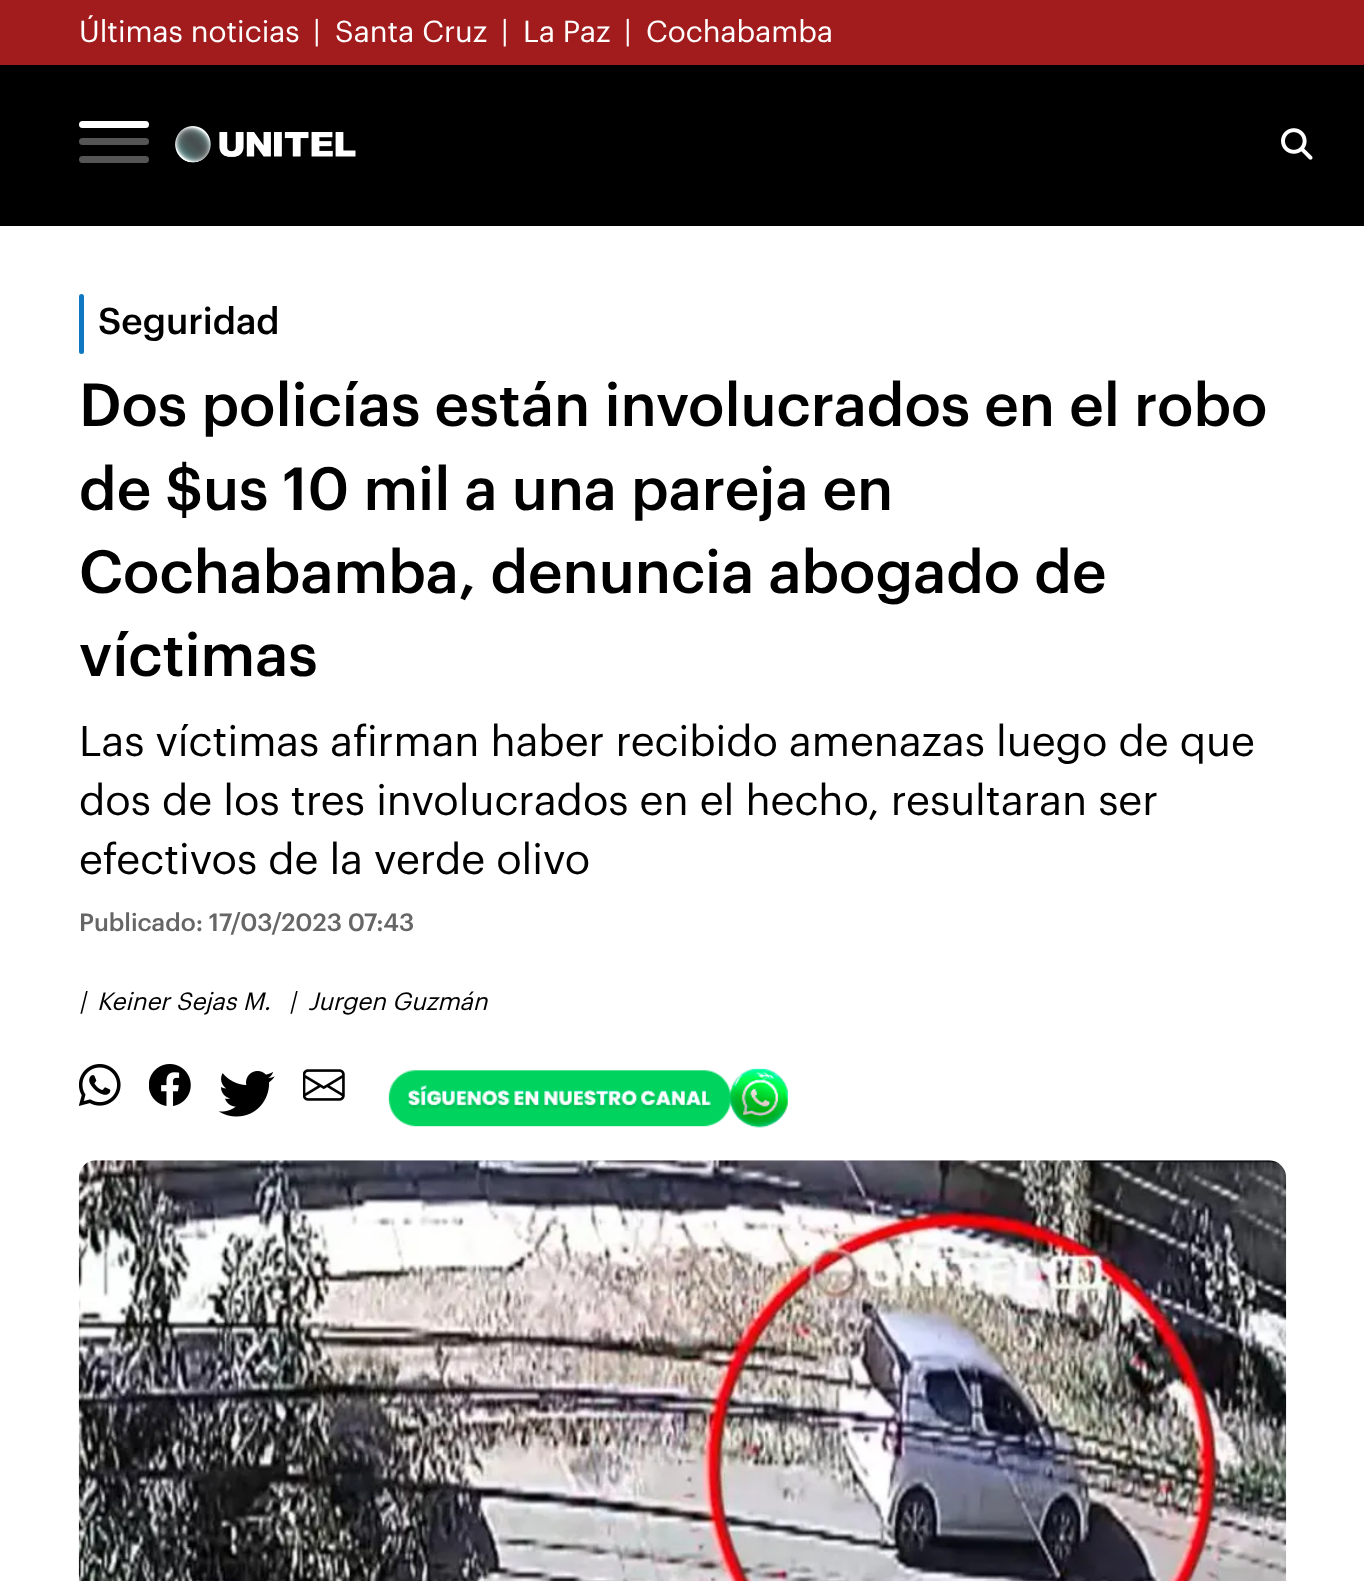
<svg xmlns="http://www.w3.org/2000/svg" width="1364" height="1581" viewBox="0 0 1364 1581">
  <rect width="100%" height="100%" fill="#fff"/>
  <path d="M0 0h1364v65H0z" fill="#a21c1e"/>
  <path d="M0 65h1364v161H0z" fill="#000"/>
  <rect x="79" y="121" width="70" height="7" rx="3.5" fill="#fff"/>
  <rect x="79" y="138" width="70" height="7" rx="3.5" fill="#555"/>
  <rect x="79" y="156" width="70" height="7" rx="3.5" fill="#555"/>
  <image x="175" y="126" width="181" height="37" href="img/1.png"/>
  <image x="1281" y="128" width="32" height="32" href="img/2.png"/>
  <rect x="79" y="294" width="5" height="60" rx="2.5" fill="#1077c3"/>
  <image x="79" y="1064" width="42" height="42" href="img/3.png"/>
  <image x="149" y="1064" width="42" height="42" href="img/4.png"/>
  <image x="219" y="1071" width="56" height="46" href="img/5.png"/>
  <image x="303" y="1069" width="42" height="32" href="img/6.png"/>
  <image x="388" y="1068" width="400" height="60" href="img/7.png"/>
  <image x="78" y="1160" width="1209" height="421" href="img/8.png"/>
  <g font-family="Graphik" font-size="29.75" fill="#fff">
    <text x="79" y="42">Últimas noticias</text>
    <text x="313" y="42">|</text>
    <text x="335" y="42">Santa Cruz</text>
    <text x="501" y="42">|</text>
    <text x="523" y="42">La Paz</text>
    <text x="624" y="42">|</text>
    <text x="646" y="42">Cochabamba</text>
  </g>
  <text x="98" y="334" font-family="Graphik" font-size="36.75" font-weight="500" fill="#000">Seguridad</text>
  <g font-family="Graphik" font-size="59.5" font-weight="500" fill="#000">
    <text x="79" y="426">Dos policías están involucrados en el robo</text>
    <text x="79" y="510">de $us 10 mil a una pareja en</text>
    <text x="79" y="593">Cochabamba, denuncia abogado de</text>
    <text x="79" y="676">víctimas</text>
  </g>
  <g font-family="Graphik" font-size="42" fill="#000">
    <text x="79" y="756">Las víctimas afirman haber recibido amenazas luego de que</text>
    <text x="79" y="815">dos de los tres involucrados en el hecho, resultaran ser</text>
    <text x="79" y="874">efectivos de la verde olivo</text>
  </g>
  <text x="79" y="931" font-family="Graphik" font-size="24.5" font-weight="500" fill="#666">Publicado: 17/03/2023 07:43</text>
  <g font-family="Graphik" font-size="24.5" font-style="italic" fill="#000">
    <text x="79" y="1010">|</text>
    <text x="97" y="1010">Keiner Sejas M.</text>
    <text x="289" y="1010">|</text>
    <text x="308" y="1010">Jurgen Guzmán</text>
  </g>
</svg>
